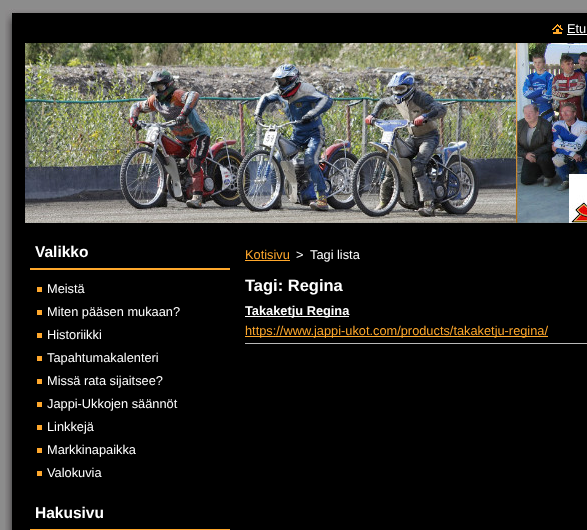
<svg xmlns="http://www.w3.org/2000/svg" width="587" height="530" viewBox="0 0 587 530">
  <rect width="100%" height="100%" fill="#8c8c8c"/>
  <image x="5" y="24" width="582" height="493" href="img/1.png"/>
  <image x="5" y="8" width="582" height="16" href="img/2.png"/>
  <image x="5" y="517" width="582" height="13" href="img/3.png"/>
  <image x="552" y="24" width="11" height="10" href="img/4.png"/>
  <path d="M567 34h20v1H567z" fill="#fff"/>
  <image x="25" y="43" width="562" height="180" href="img/5.png"/>
  <path d="M30 268h200v2H30z" fill="#ffa82c"/>
  <path d="M37 287h5v5H37z" fill="#ffa82d"/>
  <path d="M37 310h5v5H37z" fill="#ffa82d"/>
  <path d="M37 333h5v5H37z" fill="#ffa82d"/>
  <path d="M37 356h5v5H37z" fill="#ffa82d"/>
  <path d="M37 379h5v5H37z" fill="#ffa82d"/>
  <path d="M37 402h5v5H37z" fill="#ffa82d"/>
  <path d="M37 425h5v5H37z" fill="#ffa82d"/>
  <path d="M37 448h5v5H37z" fill="#ffa82d"/>
  <path d="M37 471h5v5H37z" fill="#ffa82d"/>
  <path d="M30 529h200v1H30z" fill="#ffa82c"/>
  <path d="M245 260h45v1H245z" fill="#ffa82c"/>
  <path d="M245 343h342v1H245z" fill="#b9b9b9"/>
  <path d="M245 316h104v1H245z" fill="#fff"/>
  <path d="M245 336h303v1H245z" fill="#ffa82c"/>
  <text x="567" y="33" font-family="Liberation Sans" font-size="12.8" fill="#fff">Etu</text>
  <text x="35" y="257" font-family="Liberation Sans" font-size="15.5" font-weight="bold" fill="#fff">Valikko</text>
  <g font-family="Liberation Sans" font-size="12.8" fill="#fff">
    <text x="47" y="293">Meistä</text>
    <text x="47" y="316">Miten pääsen mukaan?</text>
    <text x="47" y="339">Historiikki</text>
    <text x="47" y="362">Tapahtumakalenteri</text>
    <text x="47" y="385">Missä rata sijaitsee?</text>
    <text x="47" y="408">Jappi-Ukkojen säännöt</text>
    <text x="47" y="431">Linkkejä</text>
    <text x="47" y="454">Markkinapaikka</text>
    <text x="47" y="477">Valokuvia</text>
  </g>
  <text x="35" y="518" font-family="Liberation Sans" font-size="15.5" font-weight="bold" fill="#fff">Hakusivu</text>
  <text x="245" y="259" font-family="Liberation Sans" font-size="12.8" fill="#ffa82c">Kotisivu</text>
  <g font-family="Liberation Sans" font-size="12.8" fill="#fff">
    <text x="296" y="259">&gt;</text>
    <text x="310" y="259">Tagi lista</text>
  </g>
  <text x="245" y="291" font-family="Liberation Sans" font-size="16.5" font-weight="bold" fill="#fff">Tagi: Regina</text>
  <text x="245" y="315" font-family="Liberation Sans" font-size="12.8" font-weight="bold" fill="#fff">Takaketju Regina</text>
  <text x="245" y="335" font-family="Liberation Sans" font-size="12.8" fill="#ffa82c">https://www.jappi-ukot.com/products/takaketju-regina/</text>
</svg>
